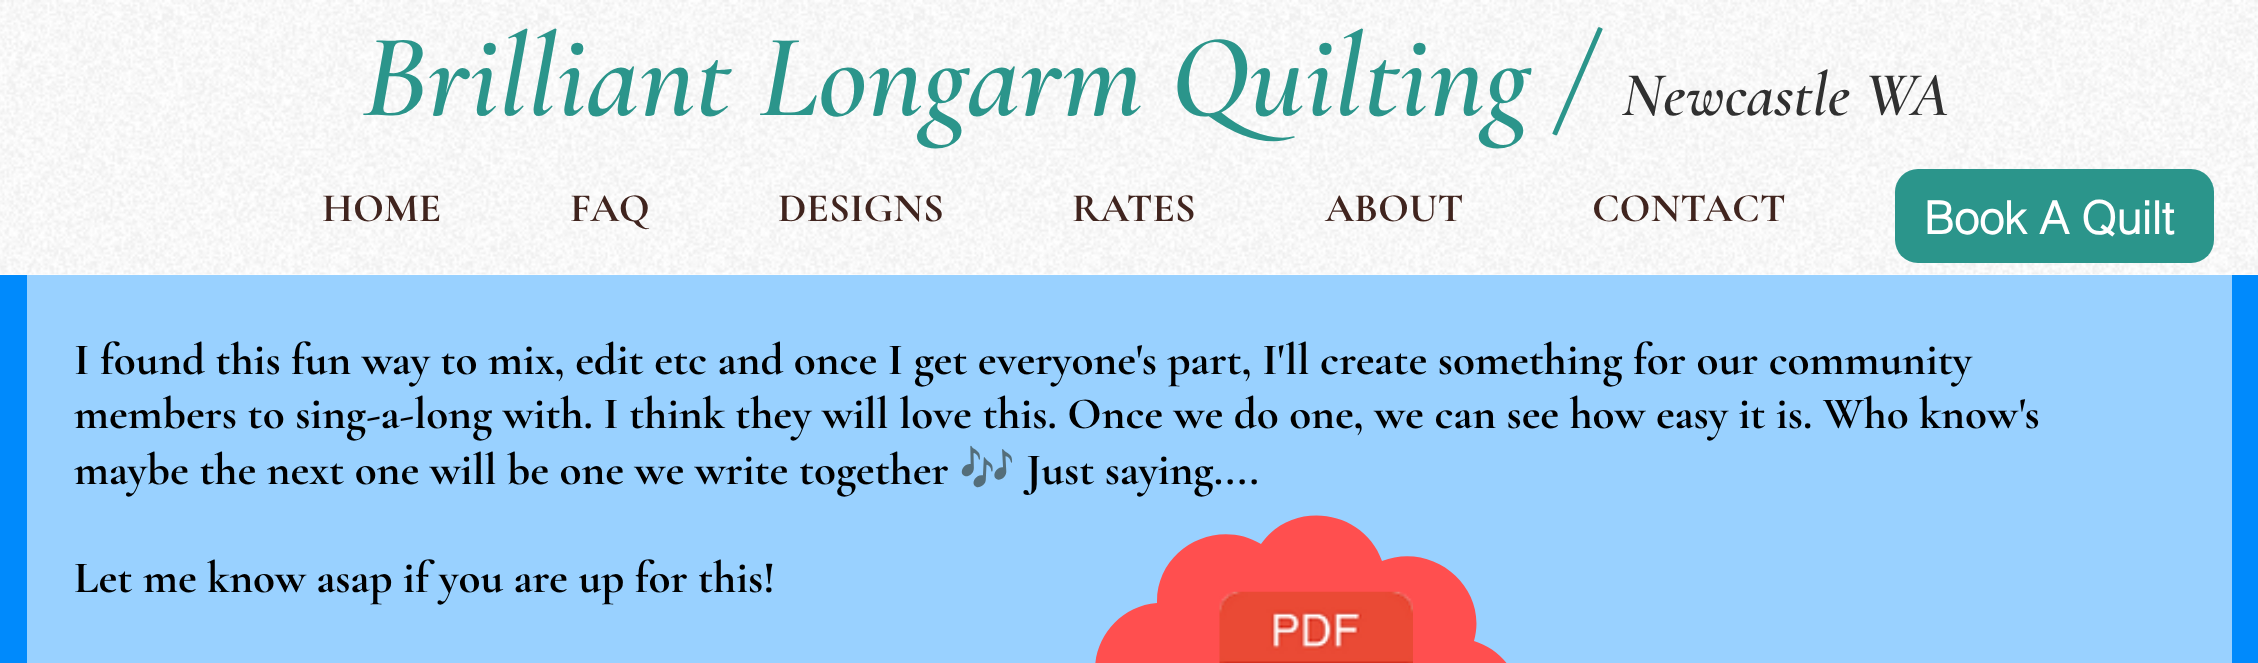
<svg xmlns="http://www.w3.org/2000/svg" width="2258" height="663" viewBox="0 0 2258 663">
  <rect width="100%" height="100%" fill="#008afc"/>
  <path d="M0 0h2258v275H0z" fill="#fff"/>
  <image x="0" y="0" width="2258" height="275" href="img/1.png"/>
  <rect x="1895" y="169" width="319" height="94" rx="23" fill="#2b958b"/>
  <path d="M27 275h2205v388H27z" fill="#99d1ff"/>
  <path d="M1520 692C1515 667 1497 648 1474 641C1489 587 1433 541 1382 561C1364 509 1292 499 1261 544C1216 517 1156 549 1157 603C1105 607 1076 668 1109 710C1067 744 1082 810 1133 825C1120 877 1171 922 1221 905C1241 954 1309 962 1340 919C1385 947 1445 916 1445 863C1498 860 1528 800 1496 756C1515 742 1525 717 1520 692" fill="#ff4f4f" fill-rule="evenodd"/>
  <image x="1219" y="591" width="194" height="72" href="img/2.png"/>
  <text x="362" y="115" font-family="Cormorant Garamond" font-size="119.25" font-weight="600" font-style="italic" fill="#2b958b">Brilliant Longarm Quilting /</text>
  <text x="1622" y="115" font-family="Cormorant Garamond" font-size="63" font-weight="600" font-style="italic" fill="#303030">Newcastle WA</text>
  <g font-family="Cormorant Garamond" font-size="40.5" font-weight="bold" fill="#40241e">
    <text x="322" y="221">HOME</text>
    <text x="570" y="221">FAQ</text>
    <text x="778" y="221">DESIGNS</text>
    <text x="1072" y="221">RATES</text>
    <text x="1325" y="221">ABOUT</text>
    <text x="1592" y="221">CONTACT</text>
  </g>
  <text x="1924" y="234" font-family="helvetica" font-size="45" font-weight="bold" fill="#fff">Book A Quilt</text>
  <g font-family="Cormorant Garamond" font-size="45" font-weight="bold" fill="#000">
    <text x="74" y="374">I found this fun way to mix, edit etc and once I get everyone's part, I'll create something for our community</text>
    <text x="74" y="428">members to sing-a-long with. I think they will love this. Once we do one, we can see how easy it is. Who know's</text>
    <text x="74" y="484">maybe the next one will be one we write together</text>
  </g>
  <text x="959" y="484" font-family="Noto Color Emoji" font-size="45" font-weight="bold" fill="#000">🎶</text>
  <g font-family="Cormorant Garamond" font-size="45" font-weight="bold" fill="#000">
    <text x="1026" y="484">Just saying....</text>
    <text x="74" y="592">Let me know asap if you are up for this!</text>
  </g>
</svg>
